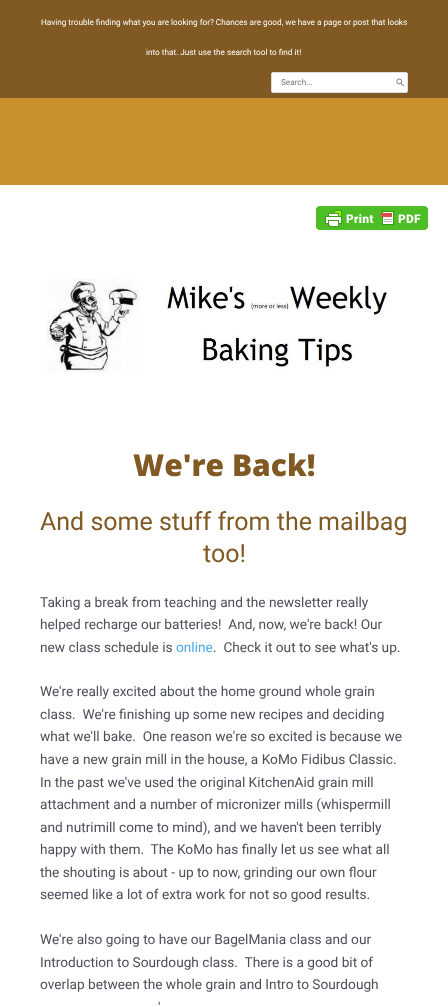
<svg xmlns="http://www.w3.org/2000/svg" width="448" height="1007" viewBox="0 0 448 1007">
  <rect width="100%" height="100%" fill="#fff"/>
  <path d="M0 0h448v98H0z" fill="#815923"/>
  <rect x="271.5" y="72.5" width="136" height="20" rx="1.5" fill="#fff" stroke="#ddd"/>
  <image x="396" y="78" width="8" height="9" href="img/1.png"/>
  <path d="M0 98h448v87H0z" fill="#c8912b"/>
  <image x="316" y="206" width="112" height="24" href="img/2.png"/>
  <image x="46" y="278" width="343" height="95" href="img/3.png"/>
  <g font-family="Roboto" font-size="8.2" fill="#fff">
    <text x="41" y="25">Having trouble finding what you are looking for? Chances are good, we have a page or post that looks</text>
    <text x="146" y="55">into that. Just use the search tool to find it!</text>
  </g>
  <text x="281" y="85" font-family="Roboto" font-size="8.2" fill="#757575">Search...</text>
  <text x="133" y="476" font-family="Open Sans" font-size="30" font-weight="800" fill="#815923">We're Back!</text>
  <g font-family="Roboto" font-size="25" fill="#815923">
    <text x="40" y="530">And some stuff from the mailbag</text>
    <text x="203" y="562">too!</text>
  </g>
  <g font-family="Roboto" font-size="13.7" fill="#4b4f58">
    <text x="40" y="607">Taking a break from teaching and the newsletter really</text>
    <text x="40" y="629" xml:space="preserve">helped recharge our batteries!  And, now, we're back! Our</text>
    <text x="40" y="652">new class schedule is</text>
  </g>
  <text x="176" y="652" font-family="Roboto" font-size="13.7" fill="#4ba8e6">online</text>
  <g font-family="Roboto" font-size="13.7" fill="#4b4f58">
    <text x="213" y="652" xml:space="preserve">.  Check it out to see what's up.</text>
    <text x="40" y="696">We're really excited about the home ground whole grain</text>
    <text x="40" y="719" xml:space="preserve">class.  We're finishing up some new recipes and deciding</text>
    <text x="40" y="741" xml:space="preserve">what we'll bake.  One reason we're so excited is because we</text>
    <text x="40" y="764">have a new grain mill in the house, a KoMo Fidibus Classic.</text>
    <text x="40" y="787">In the past we've used the original KitchenAid grain mill</text>
    <text x="40" y="809">attachment and a number of micronizer mills (whispermill</text>
    <text x="40" y="832">and nutrimill come to mind), and we haven't been terribly</text>
    <text x="40" y="854" xml:space="preserve">happy with them.  The KoMo has finally let us see what all</text>
    <text x="40" y="877">the shouting is about - up to now, grinding our own flour</text>
    <text x="40" y="899">seemed like a lot of extra work for not so good results.</text>
    <text x="40" y="944">We're also going to have our BagelMania class and our</text>
    <text x="40" y="967" xml:space="preserve">Introduction to Sourdough class.  There is a good bit of</text>
    <text x="40" y="989">overlap between the whole grain and Intro to Sourdough</text>
    <text x="158" y="1012">'</text>
  </g>
</svg>
